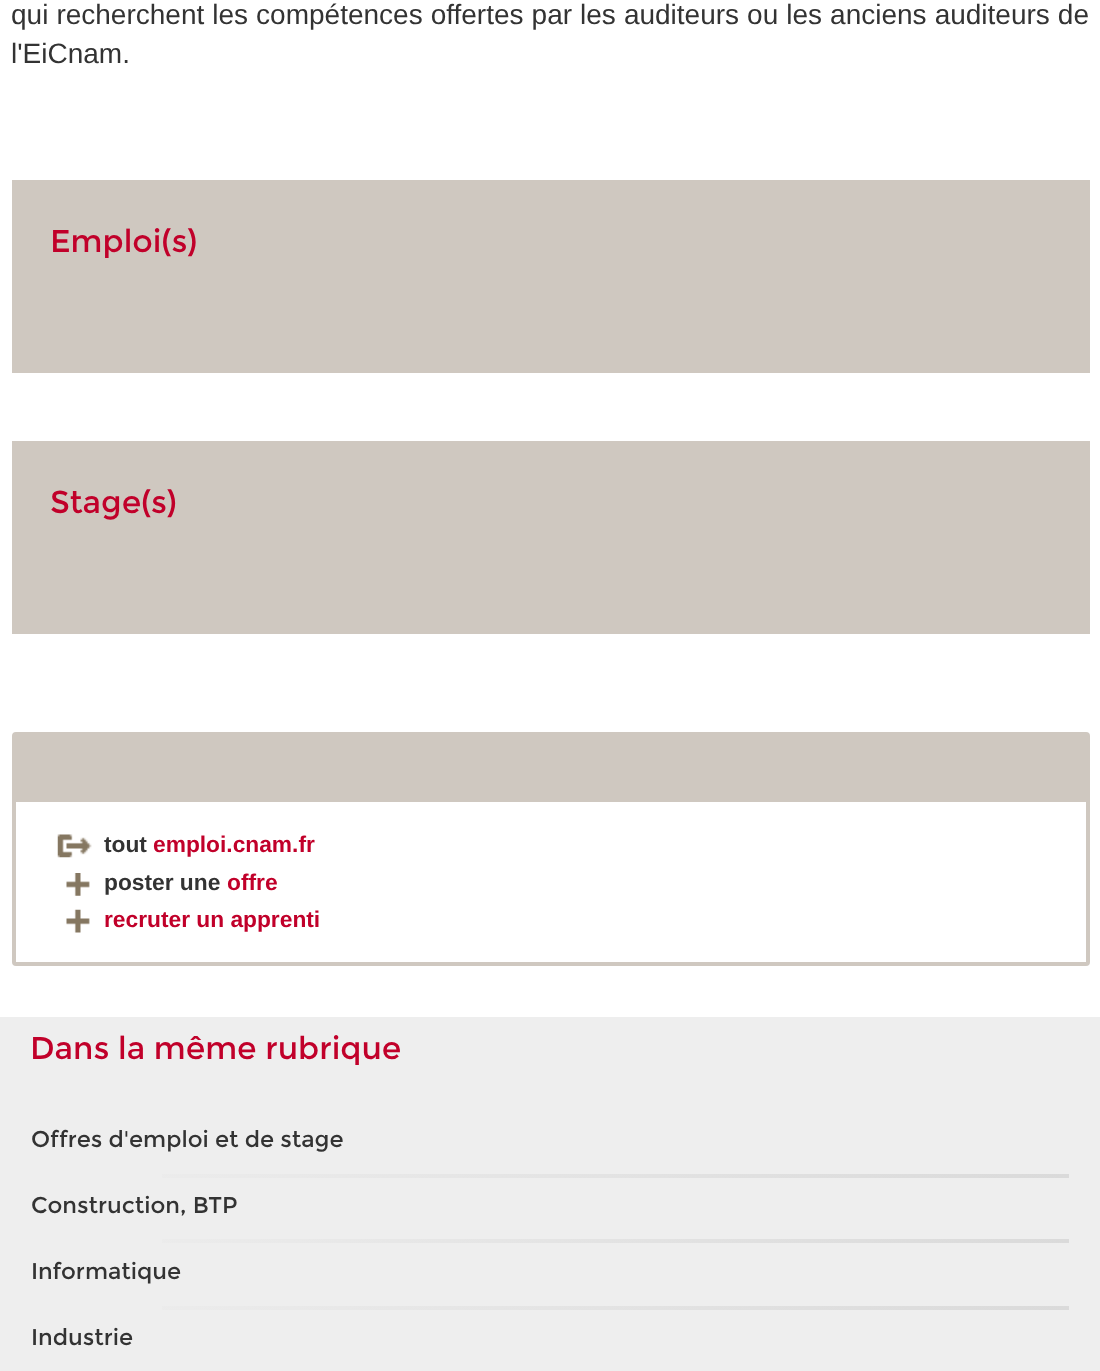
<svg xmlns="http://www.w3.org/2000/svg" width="1100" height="1371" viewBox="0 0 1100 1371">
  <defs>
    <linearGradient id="g1" gradientUnits="userSpaceOnUse" x1="32" y1="1176" x2="1069" y2="1176"><stop offset="0" stop-color="#eee"/><stop offset="1" stop-color="#dadada"/></linearGradient>
    <linearGradient id="g2" gradientUnits="userSpaceOnUse" x1="32" y1="1241" x2="1069" y2="1241"><stop offset="0" stop-color="#eee"/><stop offset="1" stop-color="#dadada"/></linearGradient>
    <linearGradient id="g3" gradientUnits="userSpaceOnUse" x1="32" y1="1307" x2="1069" y2="1307"><stop offset="0" stop-color="#eee"/><stop offset="1" stop-color="#dadada"/></linearGradient>
  </defs>
  <rect width="100%" height="100%" fill="#fff"/>
  <path d="M12 180h1078v193H12z" fill="#cfc8c0"/>
  <path d="M12 441h1078v193H12z" fill="#cfc8c0"/>
  <rect x="14" y="734" width="1074" height="230" rx="2" fill="none" stroke="#cfc8c0" stroke-width="4"/>
  <path d="M16 736h1070v66H16z" fill="#cfc8c0"/>
  <image x="57" y="834" width="35" height="24" href="img/1.png"/>
  <image x="66" y="873" width="24" height="23" href="img/2.png"/>
  <image x="66" y="909" width="24" height="24" href="img/3.png"/>
  <path d="M0 1017h1100v354H0z" fill="#eee"/>
  <path d="M162 1174h907v4H162z" fill="url(#g1)"/>
  <path d="M162 1239h907v4H162z" fill="url(#g2)"/>
  <path d="M162 1306h907v4H162z" fill="url(#g3)"/>
  <g font-family="Liberation Sans" font-size="28" fill="#333">
    <text x="11" y="24" word-spacing="0.25">qui recherchent les compétences offertes par les auditeurs ou les anciens auditeurs de</text>
    <text x="11" y="63">l'EiCnam.</text>
  </g>
  <g font-family="Montserrat" font-size="31.5" fill="#c1002a">
    <text x="50" y="252">Emploi(s)</text>
    <text x="50" y="513">Stage(s)</text>
  </g>
  <text x="104" y="852" font-family="Liberation Sans" font-size="22.75" font-weight="bold" fill="#333">tout</text>
  <text x="153" y="852" font-family="Liberation Sans" font-size="22.75" font-weight="bold" fill="#c1002a">emploi.cnam.fr</text>
  <text x="104" y="890" font-family="Liberation Sans" font-size="22.75" font-weight="bold" fill="#333">poster une</text>
  <g font-family="Liberation Sans" font-size="22.75" font-weight="bold" fill="#c1002a">
    <text x="227" y="890">offre</text>
    <text x="104" y="927">recruter un apprenti</text>
  </g>
  <text x="30" y="1059" font-family="Montserrat" font-size="31.5" fill="#c1002a">Dans la même rubrique</text>
  <g font-family="Montserrat" font-size="22.75" fill="#333">
    <text x="31" y="1147">Offres d'emploi et de stage</text>
    <text x="31" y="1213">Construction, BTP</text>
    <text x="31" y="1279">Informatique</text>
    <text x="31" y="1345">Industrie</text>
  </g>
</svg>
